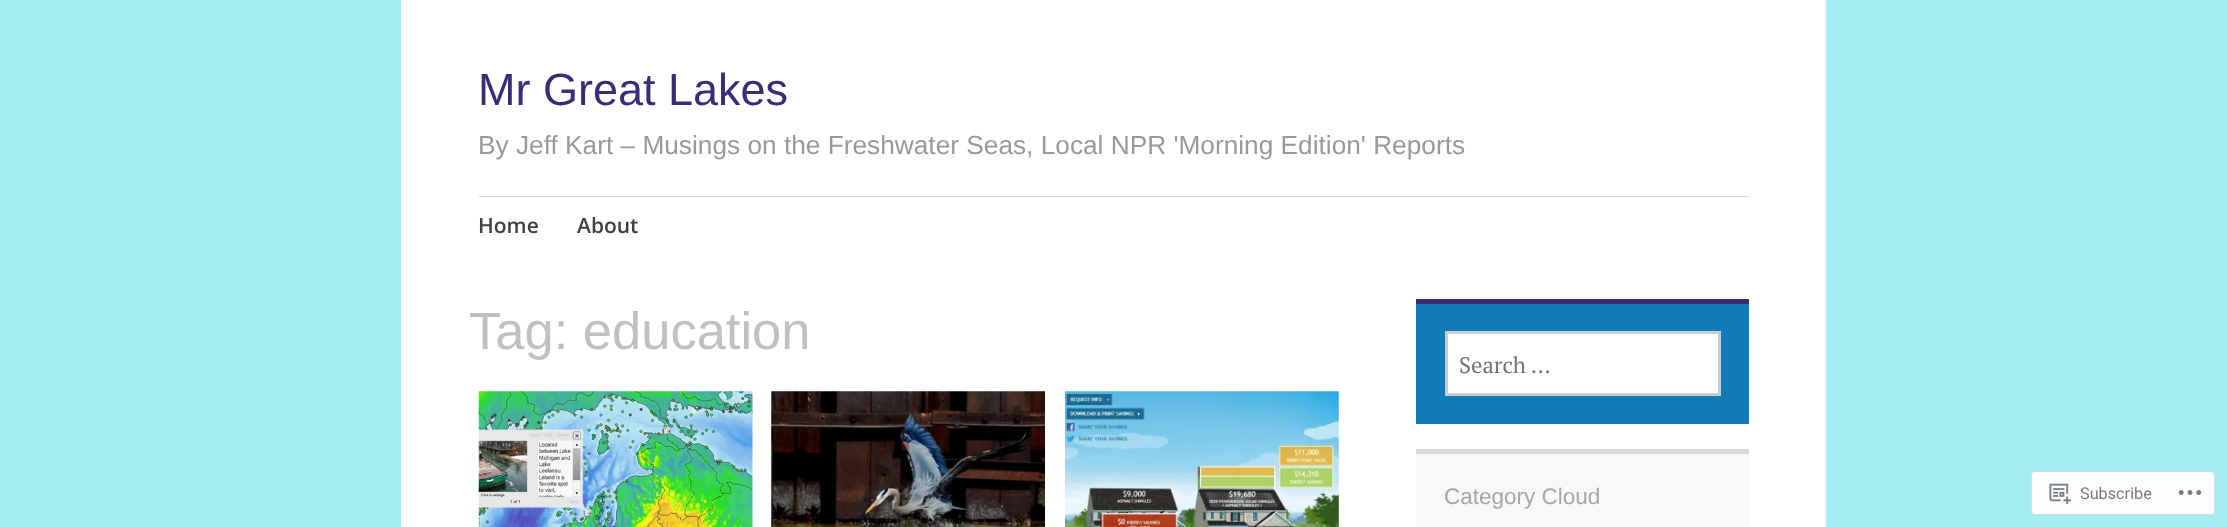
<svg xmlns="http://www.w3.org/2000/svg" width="2227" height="527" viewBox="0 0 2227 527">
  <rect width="100%" height="100%" fill="#a2ecf2"/>
  <path d="M401 0h1425v527H401z" fill="#fff"/>
  <path d="M479 196h1270v1H479z" fill="#d9d9d9"/>
  <image x="478" y="391" width="275" height="136" href="img/1.png"/>
  <image x="771" y="391" width="274" height="136" href="img/2.png"/>
  <image x="1065" y="391" width="274" height="136" href="img/3.png"/>
  <path d="M1416 304h333v120H1416z" fill="#117bb8"/>
  <path d="M1416 299h333v5H1416z" fill="#362e77"/>
  <path d="M1446.5 332.5h273v62H1446.5z" fill="#fff" stroke="#ccc" stroke-width="3"/>
  <path d="M1416 454h333v73H1416z" fill="#f8f8f8"/>
  <path d="M1416 449h333v5H1416z" fill="#d9d9d9"/>
  <rect x="2031.5" y="471.5" width="183" height="43" rx="3.5" fill="#fdffff" stroke="#dbdcde"/>
  <image x="2049" y="483" width="22" height="22" href="img/4.png"/>
  <image x="2178" y="490" width="24" height="5" href="img/5.png"/>
  <text x="478" y="105" font-family="Arimo" font-size="45" fill="#362e77">Mr Great Lakes</text>
  <text x="478" y="154" font-family="Arimo" font-size="26.25" fill="#999">By Jeff Kart – Musings on the Freshwater Seas, Local NPR 'Morning Edition' Reports</text>
  <g font-family="Open Sans" font-size="21" font-weight="600" fill="#404040">
    <text x="478" y="233">Home</text>
    <text x="577" y="233">About</text>
  </g>
  <text x="469" y="349" font-family="Arimo" font-size="52.5" fill="#c0c0c0">Tag: education</text>
  <text x="1459" y="373" font-family="PT Serif" font-size="22.5" fill="#757575">Search …</text>
  <text x="1444" y="504" font-family="Arimo" font-size="22.5" fill="#a6a6a6">Category Cloud</text>
  <text x="2080" y="499" font-family="Roboto" font-size="16.25" fill="#797e84">Subscribe</text>
</svg>
